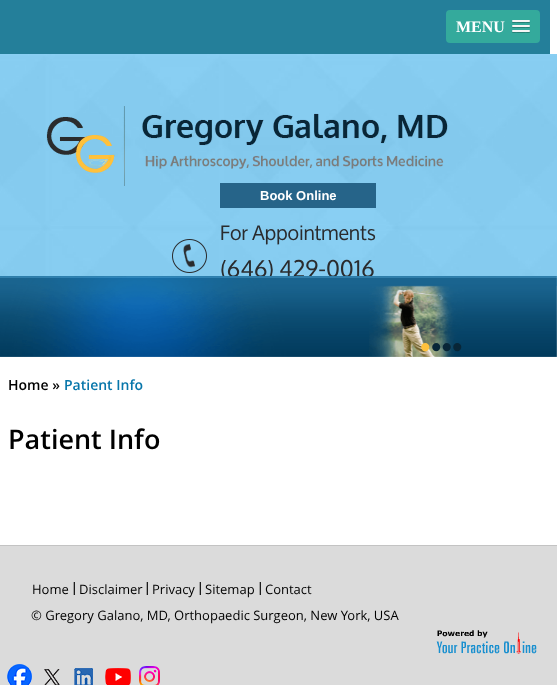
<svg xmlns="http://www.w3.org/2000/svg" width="557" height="685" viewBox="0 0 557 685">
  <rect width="100%" height="100%" fill="#fff"/>
  <path d="M0 0h550v54H0z" fill="#247f9a"/>
  <rect x="446" y="10" width="94" height="33" rx="4" fill="#34aa9c"/>
  <path d="M512 21.5C511 23.5 515.5 23 515.5 23H526.5C526.5 23 531 23.5 530 21.5C529 22.5 522.5 22 521 22C519.5 22 513 22.5 512 21.5Z" fill="#278075"/>
  <rect x="512" y="20" width="18" height="2" rx="1" fill="#f5f5f5"/>
  <path d="M512 26.5C511 28.5 515.5 28 515.5 28H526.5C526.5 28 531 28.5 530 26.5C529 27.5 522.5 27 521 27C519.5 27 513 27.5 512 26.5Z" fill="#278075"/>
  <rect x="512" y="25" width="18" height="2" rx="1" fill="#f5f5f5"/>
  <path d="M512 31.5C511 33.5 515.5 33 515.5 33H526.5C526.5 33 531 33.5 530 31.5C529 32.5 522.5 32 521 32C519.5 32 513 32.5 512 31.5Z" fill="#278075"/>
  <rect x="512" y="30" width="18" height="2" rx="1" fill="#f5f5f5"/>
  <image x="0" y="54" width="557" height="232" href="img/1.png"/>
  <image x="46" y="106" width="402" height="80" href="img/2.png"/>
  <path d="M220 183h156v25H220z" fill="#266489"/>
  <image x="172" y="239" width="35" height="34" href="img/3.png"/>
  <path d="M0 546h557v139H0z" fill="#dbdbdb"/>
  <path d="M0 545h557v1H0z" fill="#c3c3c3"/>
  <image x="73" y="582" width="2" height="13" href="img/5.png"/>
  <image x="146" y="582" width="2" height="13" href="img/5.png"/>
  <image x="199" y="582" width="2" height="13" href="img/5.png"/>
  <image x="259" y="582" width="2" height="13" href="img/5.png"/>
  <image x="436" y="630" width="101" height="24" href="img/6.png"/>
  <image x="7" y="664" width="25" height="21" href="img/7.png"/>
  <image x="44" y="669" width="16" height="16" href="img/8.png"/>
  <image x="74" y="668" width="19" height="17" href="img/9.png"/>
  <image x="105" y="668" width="26" height="17" href="img/10.png"/>
  <image x="139" y="666" width="21" height="19" href="img/11.png"/>
  <text x="456" y="32" font-family="Liberation Serif" font-size="16" font-weight="bold" fill="#fff">MENU</text>
  <text x="260" y="200" font-family="Liberation Sans" font-size="13" font-weight="bold" fill="#fff">Book Online</text>
  <text x="220" y="240" font-family="Oxygen" font-size="20" fill="#2a2b2d">For Appointments</text>
  <text x="220" y="277" font-family="Oxygen" font-size="23" fill="#2a2b2d">(646) 429-0016</text>
  <image x="0" y="276" width="557" height="81" href="img/4.png"/>
  <text x="420" y="357" font-family="Liberation Sans" font-size="30" fill="#ffc13c">•</text>
  <text x="431" y="357" font-family="Liberation Sans" font-size="30" fill="#082637">•••</text>
  <text x="8" y="390" font-family="Open Sans" font-size="14" font-weight="600" fill="#000">Home »</text>
  <text x="64" y="390" font-family="Open Sans" font-size="14" font-weight="600" fill="#0776aa">Patient Info</text>
  <text x="8" y="449" font-family="Open Sans" font-size="27" font-weight="600" fill="#000">Patient Info</text>
  <g font-family="Open Sans" font-size="13" fill="#000">
    <text x="32" y="594">Home</text>
    <text x="79" y="594">Disclaimer</text>
    <text x="152" y="594">Privacy</text>
    <text x="205" y="594">Sitemap</text>
    <text x="265" y="594">Contact</text>
    <text x="31" y="620">© Gregory Galano, MD, Orthopaedic Surgeon, New York, USA</text>
  </g>
</svg>
